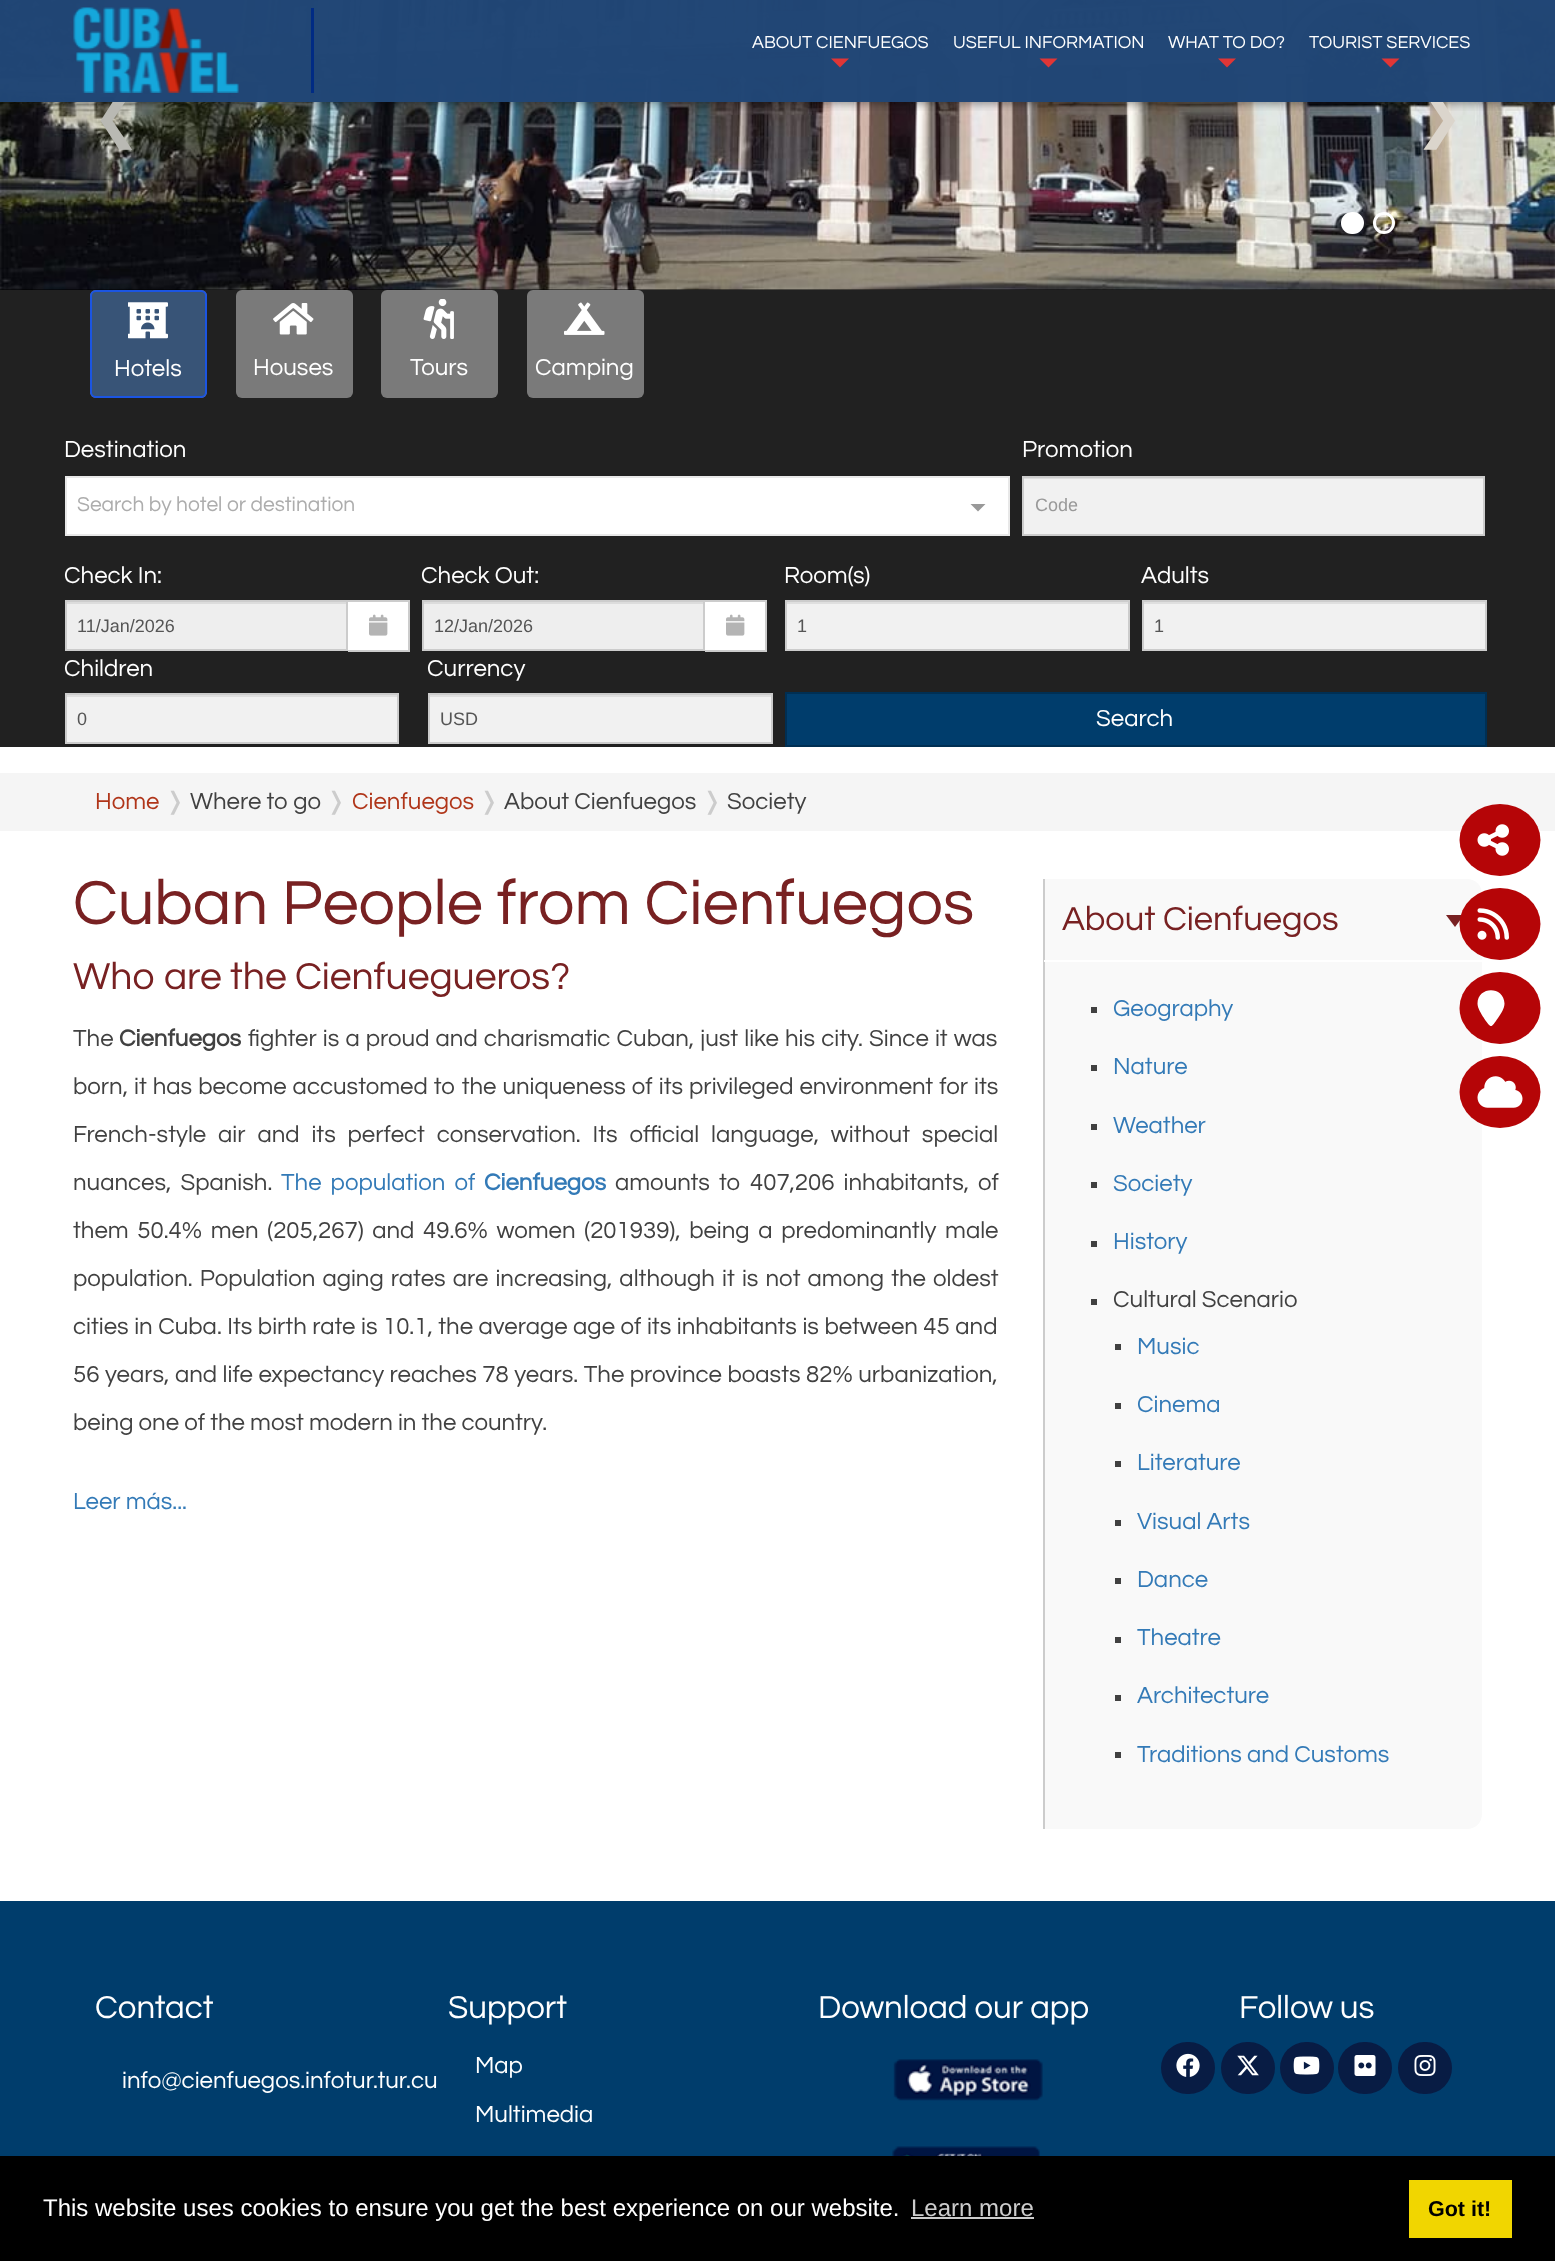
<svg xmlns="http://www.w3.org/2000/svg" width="1555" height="2261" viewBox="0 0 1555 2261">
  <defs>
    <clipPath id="clip1"><path d="M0 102h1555v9H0z"/></clipPath>
  </defs>
  <rect width="100%" height="100%" fill="#fff"/>
  <path d="M0 289h1555v1H0z" fill="#000"/>
  <image x="0" y="0" width="1555" height="290" href="img/2.png"/>
  <g clip-path="url(#clip1)">
    <path d="M0 -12h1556v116H0z" fill="#00000063" filter="blur(4px)"/>
  </g>
  <rect x="1342.5" y="213.5" width="20" height="19" rx="9.5" fill="#fff" stroke="#fff" stroke-width="3"/>
  <circle cx="1384" cy="223" r="9.5" fill="none" stroke="#fff" stroke-width="3"/>
  <path d="M0 290h1555v457H0z" fill="#212121"/>
  <rect x="90" y="290" width="117" height="108" rx="6" fill="#7a7a7a"/>
  <rect x="91" y="291" width="115" height="106" rx="5" fill="#264a76c9" stroke="#1b55e3" stroke-width="2"/>
  <image x="128" y="302" width="40" height="37" href="img/3.png"/>
  <rect x="236" y="290" width="117" height="108" rx="6" fill="#7a7a7a"/>
  <image x="273" y="303" width="41" height="32" href="img/4.png"/>
  <rect x="381" y="290" width="117" height="108" rx="6" fill="#7a7a7a"/>
  <image x="423" y="299" width="31" height="40" href="img/5.png"/>
  <rect x="527" y="290" width="117" height="108" rx="6" fill="#7a7a7a"/>
  <image x="564" y="302" width="41" height="33" href="img/6.png"/>
  <path d="M66 477h943v58H66z" fill="#fff" stroke="#e8e8e8" stroke-width="2"/>
  <path d="M970.5 504H985.5L978 511.5Z" fill="#999"/>
  <path d="M1024 479h459v55H1024z" fill="#f1f1f1"/>
  <path d="M1023 478h461v1H1023z" fill="#dfdfdf"/>
  <path d="M1023 477h461v58H1023z" fill="none" stroke="#ccc" stroke-width="2"/>
  <path d="M67 604h279v45H67z" fill="#eee"/>
  <path d="M66 602h281v2H66z" fill="#dcdcdc"/>
  <path d="M66 601h281v49H66z" fill="none" stroke="#ccc" stroke-width="2"/>
  <path d="M348 602h60v48H348z" fill="#fff"/>
  <path d="M348 600h62v2H348z" fill="#ccc"/>
  <path d="M408 600h2v51H408z" fill="#ccc"/>
  <path d="M348 650h62v2H348z" fill="#ccc"/>
  <image x="369" y="614" width="19" height="22" href="img/7.png"/>
  <path d="M424 604h279v45H424z" fill="#eee"/>
  <path d="M423 602h281v2H423z" fill="#dcdcdc"/>
  <path d="M423 601h281v49H423z" fill="none" stroke="#ccc" stroke-width="2"/>
  <path d="M705 602h60v48H705z" fill="#fff"/>
  <path d="M705 600h62v2H705z" fill="#ccc"/>
  <path d="M765 600h2v51H765z" fill="#ccc"/>
  <path d="M705 650h62v2H705z" fill="#ccc"/>
  <image x="726" y="614" width="19" height="22" href="img/7.png"/>
  <path d="M787 604h341v45H787z" fill="#f1f1f1"/>
  <path d="M786 602h342v2H786z" fill="#dfdfdf"/>
  <path d="M786 601h343v49H786z" fill="none" stroke="#ccc" stroke-width="2"/>
  <path d="M1144 604h341v45H1144z" fill="#f1f1f1"/>
  <path d="M1143 602h342v2H1143z" fill="#dfdfdf"/>
  <path d="M1143 601h343v49H1143z" fill="none" stroke="#ccc" stroke-width="2"/>
  <path d="M67 697h330v45H67z" fill="#f1f1f1"/>
  <path d="M66 695h332v2H66z" fill="#dfdfdf"/>
  <path d="M66 694h332v49H66z" fill="none" stroke="#ccc" stroke-width="2"/>
  <path d="M430 697h341v45H430z" fill="#f1f1f1"/>
  <path d="M429 695h342v2H429z" fill="#dfdfdf"/>
  <path d="M429 694h343v49H429z" fill="none" stroke="#ccc" stroke-width="2"/>
  <path d="M786 693h700v53H786z" fill="#003d6c" stroke="#002f53" stroke-width="2"/>
  <path d="M0 773h1555v58H0z" fill="#f5f5f5"/>
  <path d="M1043 879H1467C1475.5 879 1482 885.5 1482 894V1814C1482 1822.5 1475.5 1829 1467 1829H1043Z" fill="#f9f9f9"/>
  <path d="M1043 879h2v950H1043z" fill="#ccc"/>
  <path d="M1044 960h438v2H1044z" fill="#fff"/>
  <path d="M1446 915H1464L1455 927Z" fill="#782122"/>
  <path d="M1091 1007h6v6H1091z" fill="#414141"/>
  <path d="M1091 1065h6v6H1091z" fill="#414141"/>
  <path d="M1091 1124h6v6H1091z" fill="#414141"/>
  <path d="M1091 1182h6v6H1091z" fill="#414141"/>
  <path d="M1091 1241h6v6H1091z" fill="#414141"/>
  <path d="M1091 1299h6v6H1091z" fill="#414141"/>
  <path d="M1115 1344h6v6H1115z" fill="#414141"/>
  <path d="M1115 1403h6v6H1115z" fill="#414141"/>
  <path d="M1115 1461h6v6H1115z" fill="#414141"/>
  <path d="M1115 1520h6v6H1115z" fill="#414141"/>
  <path d="M1115 1578h6v6H1115z" fill="#414141"/>
  <path d="M1115 1637h6v6H1115z" fill="#414141"/>
  <path d="M1115 1695h6v6H1115z" fill="#414141"/>
  <path d="M1115 1752h6v6H1115z" fill="#414141"/>
  <ellipse cx="1500" cy="840" rx="40.5" ry="36" fill="#b50507"/>
  <image x="1477" y="824" width="32" height="32" href="img/8.png"/>
  <ellipse cx="1500" cy="924" rx="40.5" ry="36" fill="#b50507"/>
  <image x="1477" y="908" width="32" height="32" href="img/9.png"/>
  <ellipse cx="1500" cy="1008" rx="40.5" ry="36" fill="#b50507"/>
  <path d="M1504.5 1003.5C1504.5 1008.5 1501 1013.5 1498 1018C1491 1028 1491.5 1029 1484.5 1019C1482 1015 1477.5 1008.5 1477.5 1003.5C1477.5 986 1504 985.5 1504.5 1003.5Z" fill="#fff"/>
  <ellipse cx="1500" cy="1092" rx="40.5" ry="36" fill="#b50507"/>
  <image x="1477" y="1076" width="46" height="32" href="img/10.png"/>
  <path d="M0 1901h1555v255H0z" fill="#003d6c"/>
  <image x="893" y="2059" width="150" height="42" href="img/11.png"/>
  <image x="892" y="2146" width="148" height="10" href="img/12.png"/>
  <rect x="1161" y="2042" width="54" height="52" rx="26" fill="#081c44"/>
  <image x="1176" y="2053" width="24" height="24" href="img/13.png"/>
  <rect x="1221" y="2042" width="54" height="52" rx="26" fill="#081c44"/>
  <image x="1237" y="2055" width="22" height="21" href="img/14.png"/>
  <rect x="1280" y="2042" width="54" height="52" rx="26" fill="#081c44"/>
  <image x="1293" y="2056" width="27" height="19" href="img/15.png"/>
  <rect x="1338" y="2042" width="54" height="52" rx="26" fill="#081c44"/>
  <image x="1354" y="2055" width="22" height="21" href="img/16.png"/>
  <rect x="1398" y="2042" width="54" height="52" rx="26" fill="#081c44"/>
  <image x="1414" y="2055" width="22" height="21" href="img/17.png"/>
  <path d="M0 2156h1555v105H0z" fill="#000"/>
  <path d="M911 2217h123v2H911z" fill="#ccc"/>
  <path d="M1409 2180h103v58H1409z" fill="#f1d600"/>
  <text x="95" y="158" font-family="Questrial" font-size="144" fill="#b9b9b3">‹</text>
  <text x="1417" y="158" font-family="Questrial" font-size="144" fill="#dbd5cc">›</text>
  <path d="M0 0h1555v102H0z" fill="#ffffffe6"/>
  <path d="M0 0h1555v102H0z" fill="#0c3568e8"/>
  <path d="M311 8h3v85H311z" fill="#002b84"/>
  <image x="73" y="7" width="166" height="86" href="img/1.png"/>
  <text x="1309" y="48" font-family="Questrial" font-size="18" fill="#fff">TOURIST SERVICES</text>
  <path d="M1381.5 58.5H1399.5L1390.5 67.5Z" fill="#e03636"/>
  <text x="1168" y="48" font-family="Questrial" font-size="18" fill="#fff">WHAT TO DO?</text>
  <path d="M1218 58.5H1236L1227 67.5Z" fill="#e03636"/>
  <text x="953" y="48" font-family="Questrial" font-size="18" fill="#fff">USEFUL INFORMATION</text>
  <path d="M1039.5 58.5H1057.5L1048.5 67.5Z" fill="#e03636"/>
  <text x="752" y="48" font-family="Questrial" font-size="18" fill="#fff">ABOUT CIENFUEGOS</text>
  <path d="M831 58.5H849L840 67.5Z" fill="#e03636"/>
  <g font-family="Questrial" font-size="24" fill="#fff">
    <text x="114" y="376">Hotels</text>
    <text x="253" y="375">Houses</text>
    <text x="410" y="375">Tours</text>
    <text x="535" y="375">Camping</text>
    <text x="64" y="457">Destination</text>
  </g>
  <text x="77" y="511" font-family="Questrial" font-size="21" fill="#adadad">Search by hotel or destination</text>
  <text x="1022" y="457" font-family="Questrial" font-size="24" fill="#fff">Promotion</text>
  <text x="1035" y="511" font-family="Liberation Sans" font-size="18" fill="#999">Code</text>
  <text x="64" y="583" font-family="Questrial" font-size="24" fill="#fff">Check In:</text>
  <text x="77" y="632" font-family="Liberation Sans" font-size="18" fill="#555">11/Jan/2026</text>
  <text x="421" y="583" font-family="Questrial" font-size="24" fill="#fff">Check Out:</text>
  <text x="434" y="632" font-family="Liberation Sans" font-size="18" fill="#555">12/Jan/2026</text>
  <text x="784" y="583" font-family="Questrial" font-size="24" fill="#fff">Room(s)</text>
  <text x="797" y="632" font-family="Liberation Sans" font-size="18" fill="#555">1</text>
  <text x="1141" y="583" font-family="Questrial" font-size="24" fill="#fff">Adults</text>
  <text x="1154" y="632" font-family="Liberation Sans" font-size="18" fill="#555">1</text>
  <text x="64" y="676" font-family="Questrial" font-size="24" fill="#fff">Children</text>
  <text x="77" y="725" font-family="Liberation Sans" font-size="18" fill="#555">0</text>
  <text x="427" y="676" font-family="Questrial" font-size="24" fill="#fff">Currency</text>
  <text x="440" y="725" font-family="Liberation Sans" font-size="18" fill="#555">USD</text>
  <text x="1096" y="726" font-family="Questrial" font-size="24" fill="#fff">Search</text>
  <text x="95" y="809" font-family="Questrial" font-size="24" fill="#b03519">Home</text>
  <text x="165" y="809" font-family="DejaVu Sans" font-size="24" fill="#ccc">❭</text>
  <text x="190" y="809" font-family="Questrial" font-size="24" fill="#414141">Where to go</text>
  <text x="326" y="809" font-family="DejaVu Sans" font-size="24" fill="#ccc">❭</text>
  <text x="352" y="809" font-family="Questrial" font-size="24" fill="#b03519">Cienfuegos</text>
  <text x="479" y="809" font-family="DejaVu Sans" font-size="24" fill="#ccc">❭</text>
  <text x="504" y="809" font-family="Questrial" font-size="24" fill="#414141">About Cienfuegos</text>
  <text x="702" y="809" font-family="DejaVu Sans" font-size="24" fill="#ccc">❭</text>
  <text x="727" y="809" font-family="Questrial" font-size="24" fill="#414141">Society</text>
  <text x="73" y="924" font-family="Questrial" font-size="64.75" fill="#782122">Cuban People from Cienfuegos</text>
  <text x="73" y="989" font-family="Questrial" font-size="39" fill="#782122">Who are the Cienfuegueros?</text>
  <text x="73" y="1046" font-family="Questrial" font-size="24" fill="#414141">The</text>
  <text x="119" y="1046" font-family="Questrial" font-size="24" font-weight="bold" fill="#414141">Cienfuegos</text>
  <g font-family="Questrial" font-size="24" fill="#414141">
    <text x="248" y="1046" word-spacing="1">fighter is a proud and charismatic Cuban, just like his city. Since it was</text>
    <text x="73" y="1094" word-spacing="0.9">born, it has become accustomed to the uniqueness of its privileged environment for its</text>
    <text x="73" y="1142" word-spacing="6.75">French-style air and its perfect conservation. Its official language, without special</text>
    <text x="73" y="1190" word-spacing="4">nuances, Spanish.</text>
  </g>
  <text x="281" y="1190" word-spacing="4" font-family="Questrial" font-size="24" fill="#337ab7">The population of</text>
  <text x="484" y="1190" font-family="Questrial" font-size="24" font-weight="bold" fill="#337ab7">Cienfuegos</text>
  <g font-family="Questrial" font-size="24" fill="#414141">
    <text x="615" y="1190" word-spacing="4">amounts to 407,206 inhabitants, of</text>
    <text x="73" y="1238" word-spacing="3.6">them 50.4% men (205,267) and 49.6% women (201939), being a predominantly male</text>
    <text x="73" y="1286" word-spacing="2">population. Population aging rates are increasing, although it is not among the oldest</text>
    <text x="73" y="1334" word-spacing="0.4">cities in Cuba. Its birth rate is 10.1, the average age of its inhabitants is between 45 and</text>
    <text x="73" y="1382" word-spacing="0.4">56 years, and life expectancy reaches 78 years. The province boasts 82% urbanization,</text>
    <text x="73" y="1430">being one of the most modern in the country.</text>
  </g>
  <text x="73" y="1509" font-family="Questrial" font-size="24" fill="#337ab7">Leer más...</text>
  <text x="1062" y="930" font-family="Questrial" font-size="34.5" fill="#782122">About Cienfuegos</text>
  <g font-family="Questrial" font-size="24" fill="#337ab7">
    <text x="1113" y="1016">Geography</text>
    <text x="1113" y="1074">Nature</text>
    <text x="1113" y="1133">Weather</text>
    <text x="1113" y="1191">Society</text>
    <text x="1113" y="1249">History</text>
  </g>
  <text x="1113" y="1307" font-family="Questrial" font-size="24" fill="#414141">Cultural Scenario</text>
  <g font-family="Questrial" font-size="24" fill="#337ab7">
    <text x="1137" y="1354">Music</text>
    <text x="1137" y="1412">Cinema</text>
    <text x="1137" y="1470">Literature</text>
    <text x="1137" y="1529">Visual Arts</text>
    <text x="1137" y="1587">Dance</text>
    <text x="1137" y="1645">Theatre</text>
    <text x="1137" y="1703">Architecture</text>
    <text x="1137" y="1762">Traditions and Customs</text>
  </g>
  <text x="95" y="2018" font-family="Questrial" font-size="33" fill="#fff">Contact</text>
  <text x="122" y="2088" font-family="Questrial" font-size="24" fill="#fff">info@cienfuegos.infotur.tur.cu</text>
  <text x="448" y="2018" font-family="Questrial" font-size="33" fill="#fff">Support</text>
  <g font-family="Questrial" font-size="24" fill="#fff">
    <text x="475" y="2073">Map</text>
    <text x="475" y="2122">Multimedia</text>
  </g>
  <g font-family="Questrial" font-size="33" fill="#fff">
    <text x="818" y="2018">Download our app</text>
    <text x="1239" y="2018">Follow us</text>
  </g>
  <text x="43" y="2216" font-family="Liberation Sans" font-size="24" fill="#fff">This website uses cookies to ensure you get the best experience on our website.</text>
  <text x="911" y="2216" font-family="Liberation Sans" font-size="24" fill="#ccc">Learn more</text>
  <text x="1428" y="2216" font-family="Liberation Sans" font-size="21.5" font-weight="bold" fill="#000">Got it!</text>
</svg>
